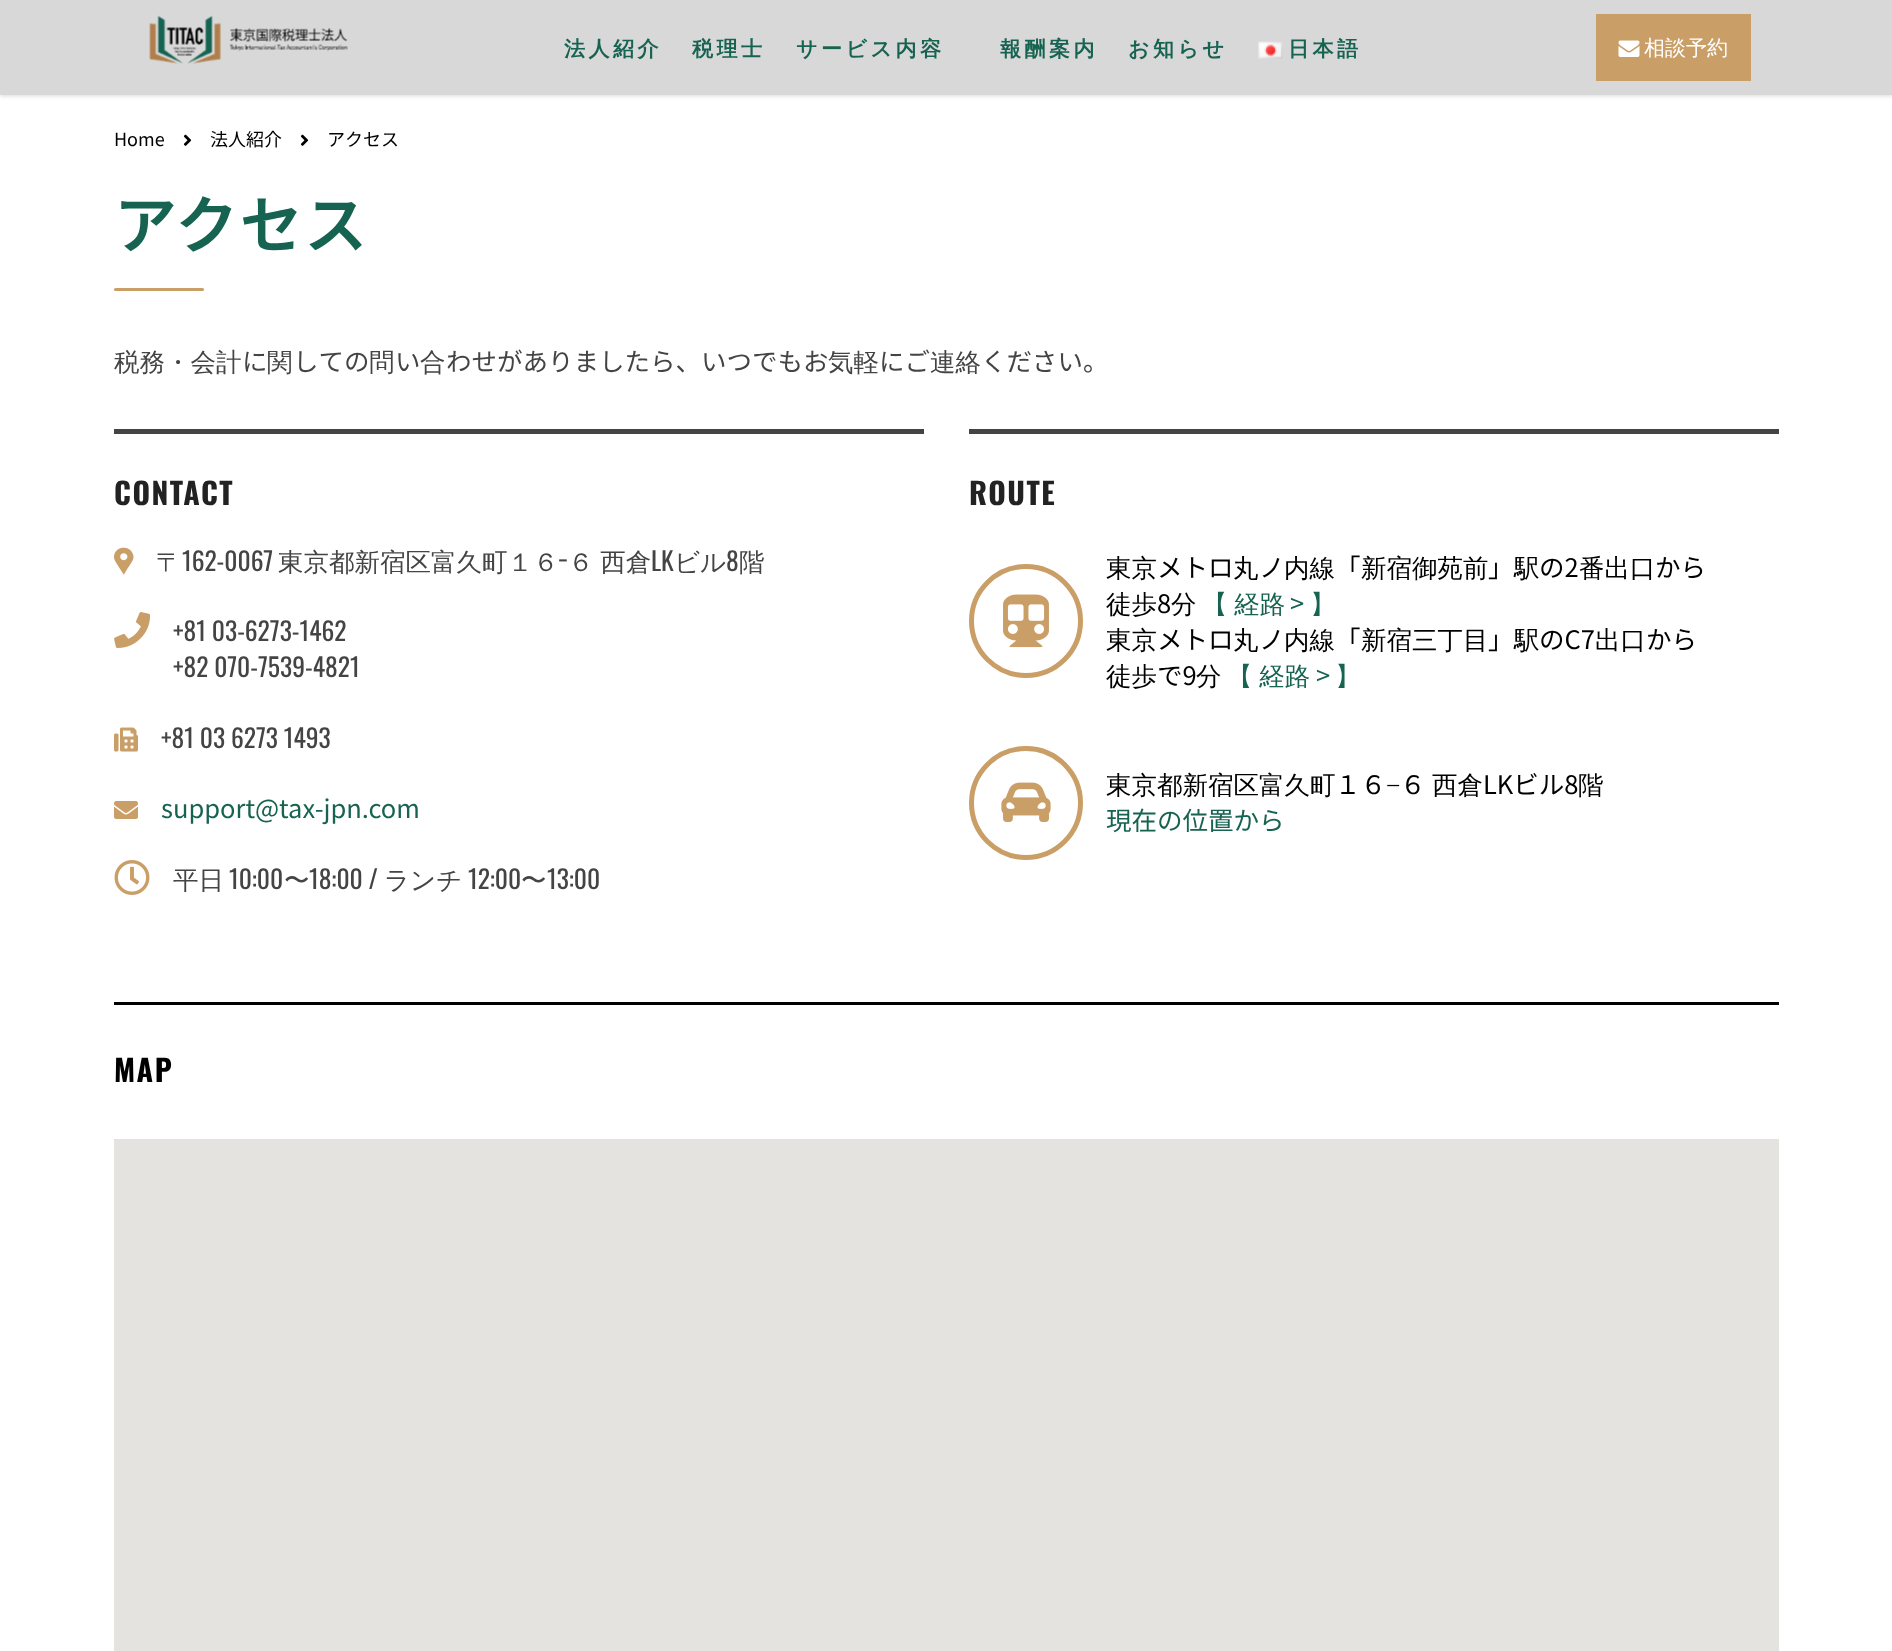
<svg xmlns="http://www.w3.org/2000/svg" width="1892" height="1651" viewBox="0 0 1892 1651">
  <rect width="100%" height="100%" fill="#fff"/>
  <path d="M0 2h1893v94H0z" fill="#00000026" filter="blur(2px)"/>
  <path d="M0 0h1892v95H0z" fill="#d9d8d8"/>
  <image x="149" y="15" width="199" height="49" href="img/1.png"/>
  <image x="1258" y="41" width="25" height="18" href="img/2.png"/>
  <path d="M1596 14h155v67H1596z" fill="#ca9e67"/>
  <image x="1618" y="40" width="22" height="17" href="img/3.png"/>
  <image x="183" y="134" width="9" height="12" href="img/4.png"/>
  <image x="300" y="134" width="9" height="12" href="img/4.png"/>
  <rect x="114" y="288" width="90" height="3" rx="1.5" fill="#ca9e67"/>
  <path d="M114 429h810v5H114z" fill="#444"/>
  <image x="114" y="547" width="20" height="28" href="img/5.png"/>
  <image x="114" y="612" width="37" height="36" href="img/6.png"/>
  <image x="114" y="727" width="24" height="25" href="img/7.png"/>
  <image x="114" y="801" width="24" height="18" href="img/8.png"/>
  <image x="114" y="860" width="36" height="35" href="img/9.png"/>
  <path d="M969 429h810v5H969z" fill="#444"/>
  <circle cx="1026" cy="621" r="54.5" fill="none" stroke="#ca9e67" stroke-width="5"/>
  <image x="1003" y="594" width="46" height="54" href="img/10.png"/>
  <circle cx="1026" cy="803" r="54.5" fill="none" stroke="#ca9e67" stroke-width="5"/>
  <image x="1001" y="782" width="50" height="40" href="img/11.png"/>
  <path d="M114 1002h1665v3H114z" fill="#000"/>
  <path d="M114 1139h1665v512H114z" fill="#e5e3df"/>
  <g font-family="WenQuanYi Zen Hei" font-size="21" font-weight="bold" letter-spacing="3.5" fill="#176351">
    <text x="564" y="56">法人紹介</text>
    <text x="692" y="56">税理士</text>
    <text x="796" y="56">サービス内容</text>
    <text x="1000" y="56">報酬案内</text>
    <text x="1128" y="56">お知らせ</text>
    <text x="1288" y="56">日本語</text>
  </g>
  <text x="1644" y="55" font-family="WenQuanYi Zen Hei" font-size="21" font-weight="500" fill="#fff">相談予約</text>
  <g font-family="Noto Sans KR" font-size="18" fill="#000">
    <text x="114" y="146">Home</text>
    <text x="210" y="146">法人紹介</text>
  </g>
  <text x="327" y="146" font-family="'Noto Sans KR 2'" font-size="18" fill="#000">アクセス</text>
  <text x="114" y="248" font-family="Noto Sans KR" font-size="63" font-weight="600" letter-spacing="1.5" fill="#176351">アクセス</text>
  <text x="114" y="371" font-family="WenQuanYi Zen Hei" font-size="25.5" font-weight="500" fill="#444">税務・会計</text>
  <text x="242" y="371" font-family="'Noto Sans KR 2'" font-size="25.5" fill="#444">に</text>
  <text x="267" y="371" font-family="WenQuanYi Zen Hei" font-size="25.5" font-weight="500" fill="#444">関</text>
  <text x="293" y="371" font-family="'Noto Sans KR 2'" font-size="25.5" fill="#444">しての</text>
  <text x="369" y="371" font-family="WenQuanYi Zen Hei" font-size="25.5" font-weight="500" fill="#444">問</text>
  <text x="395" y="371" font-family="'Noto Sans KR 2'" font-size="25.5" fill="#444">い</text>
  <text x="420" y="371" font-family="WenQuanYi Zen Hei" font-size="25.5" font-weight="500" fill="#444">合</text>
  <text x="446" y="371" font-family="'Noto Sans KR 2'" font-size="25.5" fill="#444">わせがありましたら、いつでもお</text>
  <text x="828" y="371" font-family="WenQuanYi Zen Hei" font-size="25.5" font-weight="500" fill="#444">気軽</text>
  <text x="879" y="371" font-family="'Noto Sans KR 2'" font-size="25.5" fill="#444">にご</text>
  <text x="930" y="371" font-family="WenQuanYi Zen Hei" font-size="25.5" font-weight="500" fill="#444">連絡</text>
  <text x="981" y="371" font-family="'Noto Sans KR 2'" font-size="25.5" fill="#444">ください。</text>
  <text x="114" y="505" font-family="Oswald" font-size="30" font-weight="bold" letter-spacing="1.5" fill="#222">CONTACT</text>
  <text x="156" y="571" font-family="WenQuanYi Zen Hei" font-size="25.5" font-weight="500" fill="#444">〒</text>
  <text x="182" y="571" font-family="Oswald" font-size="25.5" fill="#444">162-0067</text>
  <text x="278" y="571" font-family="WenQuanYi Zen Hei" font-size="25.5" font-weight="500" fill="#444">東京都新宿区富久町１６</text>
  <text x="558" y="571" font-family="Oswald" font-size="25.5" fill="#444">−</text>
  <text x="568" y="571" word-spacing="-1" font-family="WenQuanYi Zen Hei" font-size="25.5" font-weight="500" fill="#444">６ 西倉</text>
  <text x="651" y="571" font-family="Oswald" font-size="25.5" fill="#444">LK</text>
  <text x="674" y="571" font-family="WenQuanYi Zen Hei" font-size="25.5" font-weight="500" fill="#444">ビル</text>
  <text x="726" y="571" font-family="Oswald" font-size="25.5" fill="#444">8</text>
  <text x="739" y="571" font-family="WenQuanYi Zen Hei" font-size="25.5" font-weight="500" fill="#444">階</text>
  <g font-family="Oswald" font-size="25.5" fill="#444">
    <text x="173" y="641">+81 03-6273-1462</text>
    <text x="173" y="677">+82 070-7539-4821</text>
    <text x="161" y="748">+81 03 6273 1493</text>
  </g>
  <text x="161" y="818" font-family="Noto Sans KR" font-size="25.5" fill="#176351">support@tax-jpn.com</text>
  <text x="173" y="889" font-family="WenQuanYi Zen Hei" font-size="25.5" font-weight="500" fill="#444">平日</text>
  <text x="229" y="889" font-family="Oswald" font-size="25.5" fill="#444">10:00</text>
  <text x="284" y="889" font-family="WenQuanYi Zen Hei" font-size="25.5" font-weight="500" fill="#444">〜</text>
  <text x="309" y="889" font-family="Oswald" font-size="25.5" fill="#444">18:00 /</text>
  <text x="384" y="889" font-family="WenQuanYi Zen Hei" font-size="25.5" font-weight="500" fill="#444">ランチ</text>
  <text x="468" y="889" font-family="Oswald" font-size="25.5" fill="#444">12:00</text>
  <text x="521" y="889" font-family="WenQuanYi Zen Hei" font-size="25.5" font-weight="500" fill="#444">〜</text>
  <text x="547" y="889" font-family="Oswald" font-size="25.5" fill="#444">13:00</text>
  <text x="969" y="505" font-family="Oswald" font-size="30" font-weight="bold" letter-spacing="1.5" fill="#222">ROUTE</text>
  <text x="1106" y="577" font-family="WenQuanYi Zen Hei" font-size="25.5" font-weight="500" fill="#000">東京</text>
  <text x="1157" y="577" font-family="'Noto Sans KR 2'" font-size="25.5" fill="#000">メトロ</text>
  <text x="1233" y="577" font-family="WenQuanYi Zen Hei" font-size="25.5" font-weight="500" fill="#000">丸</text>
  <text x="1259" y="577" font-family="'Noto Sans KR 2'" font-size="25.5" fill="#000">ノ</text>
  <text x="1284" y="577" font-family="WenQuanYi Zen Hei" font-size="25.5" font-weight="500" fill="#000">内線</text>
  <text x="1335" y="577" font-family="'Noto Sans KR 2'" font-size="25.5" fill="#000">「</text>
  <text x="1361" y="577" font-family="WenQuanYi Zen Hei" font-size="25.5" font-weight="500" fill="#000">新宿御苑前</text>
  <text x="1488" y="577" font-family="'Noto Sans KR 2'" font-size="25.5" fill="#000">」</text>
  <text x="1514" y="577" font-family="WenQuanYi Zen Hei" font-size="25.5" font-weight="500" fill="#000">駅</text>
  <text x="1539" y="577" font-family="'Noto Sans KR 2'" font-size="25.5" fill="#000">の2</text>
  <text x="1579" y="577" font-family="WenQuanYi Zen Hei" font-size="25.5" font-weight="500" fill="#000">番出口</text>
  <text x="1655" y="577" font-family="'Noto Sans KR 2'" font-size="25.5" fill="#000">から</text>
  <text x="1106" y="613" font-family="WenQuanYi Zen Hei" font-size="25.5" font-weight="500" fill="#000">徒歩</text>
  <text x="1157" y="613" font-family="'Noto Sans KR 2'" font-size="25.5" fill="#000">8</text>
  <text x="1171" y="613" font-family="WenQuanYi Zen Hei" font-size="25.5" font-weight="500" fill="#000">分</text>
  <text x="1202" y="613" word-spacing="-1" font-family="WenQuanYi Zen Hei" font-size="25.5" font-weight="500" fill="#176351">【 経路</text>
  <text x="1290" y="613" font-family="Noto Sans KR" font-size="25.5" fill="#176351">&gt;</text>
  <text x="1310" y="613" font-family="WenQuanYi Zen Hei" font-size="25.5" font-weight="500" fill="#176351">】</text>
  <text x="1106" y="649" font-family="WenQuanYi Zen Hei" font-size="25.5" font-weight="500" fill="#000">東京</text>
  <text x="1157" y="649" font-family="'Noto Sans KR 2'" font-size="25.5" fill="#000">メトロ</text>
  <text x="1233" y="649" font-family="WenQuanYi Zen Hei" font-size="25.5" font-weight="500" fill="#000">丸</text>
  <text x="1259" y="649" font-family="'Noto Sans KR 2'" font-size="25.5" fill="#000">ノ</text>
  <text x="1284" y="649" font-family="WenQuanYi Zen Hei" font-size="25.5" font-weight="500" fill="#000">内線</text>
  <text x="1335" y="649" font-family="'Noto Sans KR 2'" font-size="25.5" fill="#000">「</text>
  <text x="1361" y="649" font-family="WenQuanYi Zen Hei" font-size="25.5" font-weight="500" fill="#000">新宿三丁目</text>
  <text x="1488" y="649" font-family="'Noto Sans KR 2'" font-size="25.5" fill="#000">」</text>
  <text x="1514" y="649" font-family="WenQuanYi Zen Hei" font-size="25.5" font-weight="500" fill="#000">駅</text>
  <text x="1539" y="649" font-family="'Noto Sans KR 2'" font-size="25.5" fill="#000">のC7</text>
  <text x="1595" y="649" font-family="WenQuanYi Zen Hei" font-size="25.5" font-weight="500" fill="#000">出口</text>
  <text x="1646" y="649" font-family="'Noto Sans KR 2'" font-size="25.5" fill="#000">から</text>
  <text x="1106" y="685" font-family="WenQuanYi Zen Hei" font-size="25.5" font-weight="500" fill="#000">徒歩</text>
  <text x="1157" y="685" font-family="'Noto Sans KR 2'" font-size="25.5" fill="#000">で9</text>
  <text x="1196" y="685" font-family="WenQuanYi Zen Hei" font-size="25.5" font-weight="500" fill="#000">分</text>
  <text x="1227" y="685" word-spacing="-1" font-family="WenQuanYi Zen Hei" font-size="25.5" font-weight="500" fill="#176351">【 経路</text>
  <text x="1316" y="685" font-family="Noto Sans KR" font-size="25.5" fill="#176351">&gt;</text>
  <text x="1335" y="685" font-family="WenQuanYi Zen Hei" font-size="25.5" font-weight="500" fill="#176351">】</text>
  <text x="1106" y="794" font-family="WenQuanYi Zen Hei" font-size="25.5" font-weight="500" fill="#000">東京都新宿区富久町</text>
  <text x="1335" y="794" font-family="'Noto Sans KR 2'" font-size="25.5" fill="#000">１６</text>
  <text x="1386" y="794" font-family="Liberation Serif" font-size="25.5" fill="#000">−</text>
  <text x="1400" y="794" font-family="'Noto Sans KR 2'" font-size="25.5" fill="#000">６</text>
  <text x="1432" y="794" font-family="WenQuanYi Zen Hei" font-size="25.5" font-weight="500" fill="#000">西倉</text>
  <text x="1483" y="794" font-family="'Noto Sans KR 2'" font-size="25.5" fill="#000">LKビル8</text>
  <text x="1578" y="794" font-family="WenQuanYi Zen Hei" font-size="25.5" font-weight="500" fill="#000">階</text>
  <text x="1106" y="830" font-family="Noto Sans KR" font-size="25.5" fill="#176351">現在の位置から</text>
  <text x="114" y="1082" font-family="Oswald" font-size="30" font-weight="bold" letter-spacing="1.5" fill="#000">MAP</text>
</svg>
